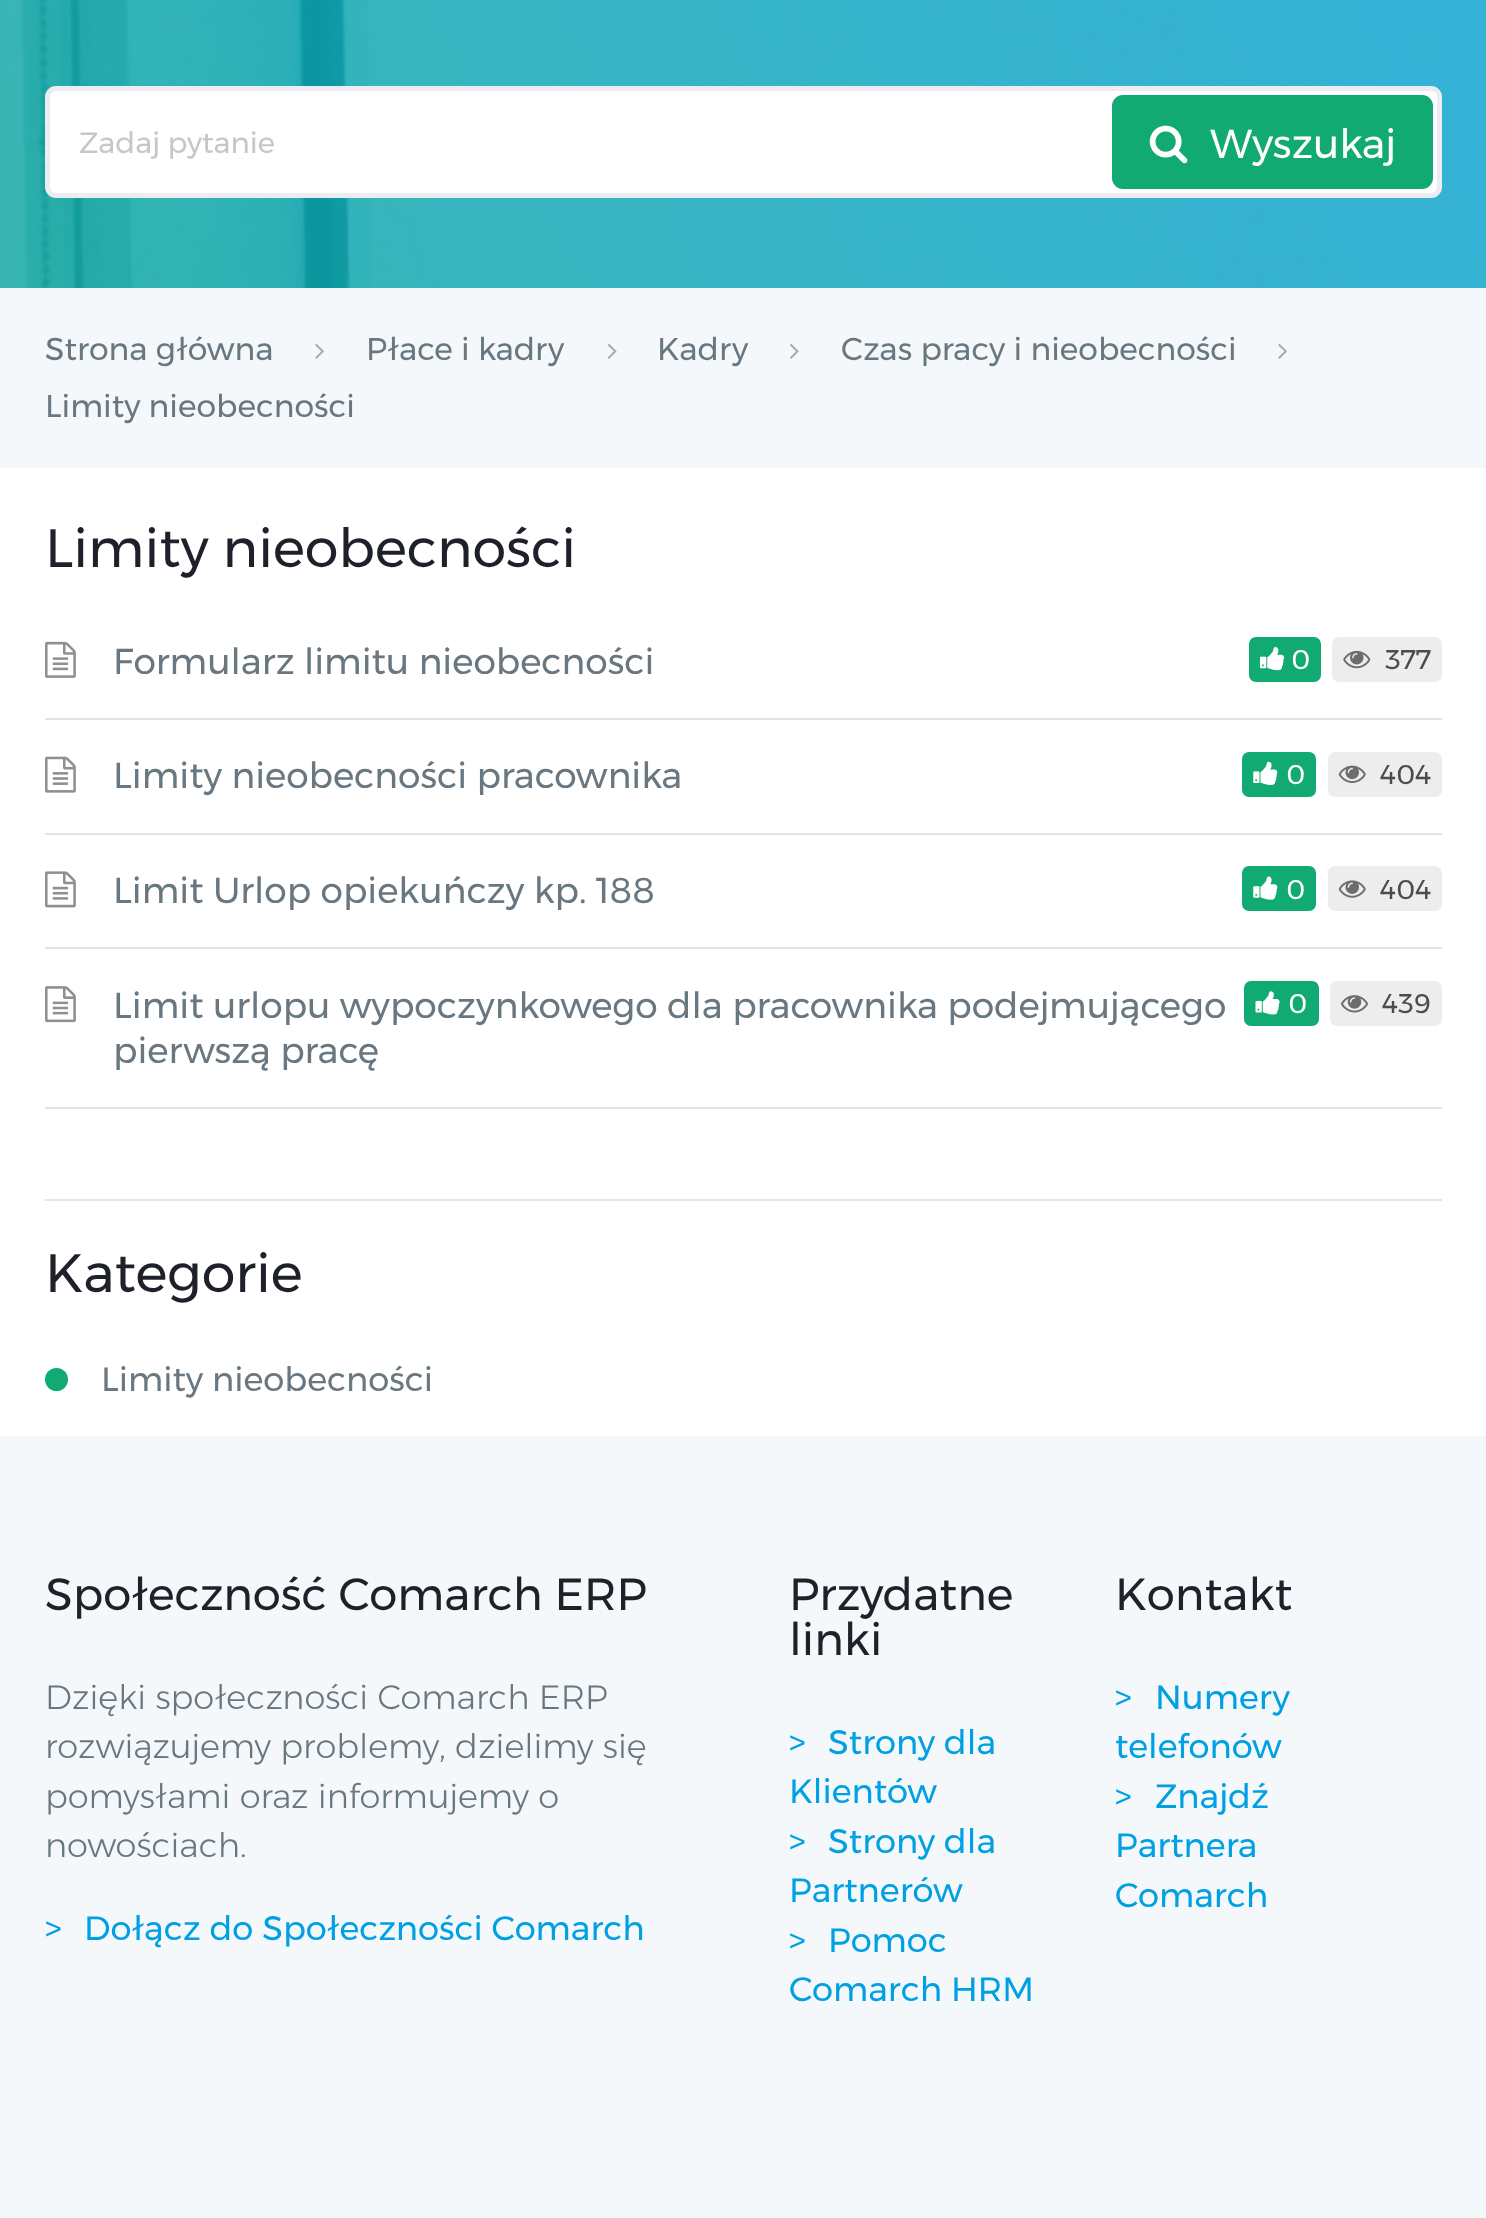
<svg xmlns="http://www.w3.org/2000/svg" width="1486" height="2218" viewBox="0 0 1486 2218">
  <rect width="100%" height="100%" fill="#fff"/>
  <image x="0" y="0" width="1486" height="288" href="img/1.png"/>
  <rect x="47.5" y="88.5" width="1392" height="107" rx="8.5" fill="#fff" stroke="#ecedf2" stroke-width="5"/>
  <rect x="1112" y="95" width="321" height="94" rx="11" fill="#11aa72"/>
  <image x="1149" y="125" width="39" height="39" href="img/2.png"/>
  <path d="M0 288h1486v180H0z" fill="#f5f8fa"/>
  <image x="315" y="343" width="9" height="16" href="img/3.png"/>
  <image x="607" y="343" width="10" height="16" href="img/4.png"/>
  <image x="790" y="343" width="9" height="16" href="img/5.png"/>
  <image x="1278" y="343" width="9" height="16" href="img/3.png"/>
  <path d="M45 1199h1397v2H45z" fill="#e5e6e9"/>
  <path d="M45 718h1397v2H45z" fill="#dfe4e6"/>
  <image x="45" y="641" width="31" height="37" href="img/6.png"/>
  <rect x="1249" y="637" width="72" height="45" rx="7" fill="#11aa72"/>
  <image x="1260" y="647" width="25" height="24" href="img/7.png"/>
  <rect x="1332" y="637" width="110" height="45" rx="7" fill="#ededed"/>
  <image x="1343" y="650" width="28" height="19" href="img/8.png"/>
  <path d="M45 833h1397v2H45z" fill="#dfe4e6"/>
  <image x="45" y="756" width="31" height="37" href="img/9.png"/>
  <rect x="1242" y="752" width="74" height="45" rx="7" fill="#11aa72"/>
  <image x="1253" y="761" width="25" height="24" href="img/10.png"/>
  <rect x="1328" y="752" width="114" height="45" rx="7" fill="#ededed"/>
  <image x="1338" y="765" width="28" height="18" href="img/11.png"/>
  <path d="M45 947h1397v2H45z" fill="#dfe4e6"/>
  <image x="45" y="871" width="31" height="37" href="img/12.png"/>
  <rect x="1242" y="866" width="74" height="45" rx="7" fill="#11aa72"/>
  <image x="1253" y="876" width="25" height="24" href="img/13.png"/>
  <rect x="1328" y="866" width="114" height="45" rx="7" fill="#ededed"/>
  <image x="1338" y="880" width="28" height="18" href="img/14.png"/>
  <path d="M45 1107h1397v2H45z" fill="#dfe4e6"/>
  <image x="45" y="986" width="31" height="37" href="img/15.png"/>
  <rect x="1244" y="981" width="75" height="45" rx="7" fill="#11aa72"/>
  <image x="1255" y="991" width="25" height="24" href="img/16.png"/>
  <rect x="1330" y="981" width="112" height="45" rx="7" fill="#ededed"/>
  <image x="1341" y="995" width="27" height="18" href="img/17.png"/>
  <circle cx="56.5" cy="1379.5" r="11.5" fill="#11aa72"/>
  <path d="M0 1436h1486v782H0z" fill="#f5f8fa"/>
  <text x="79" y="153" font-family="Montserrat" font-size="29.25" fill="#c7c7c7">Zadaj pytanie</text>
  <text x="1210" y="158" font-family="Montserrat" font-size="40.5" fill="#fff">Wyszukaj</text>
  <g font-family="Montserrat" font-size="31.5" fill="#697780">
    <text x="45" y="360">Strona główna</text>
    <text x="366" y="360">Płace i kadry</text>
    <text x="657" y="360">Kadry</text>
    <text x="841" y="360">Czas pracy i nieobecności</text>
    <text x="45" y="417">Limity nieobecności</text>
  </g>
  <text x="45" y="567" font-family="Montserrat" font-size="54" fill="#1e2129">Limity nieobecności</text>
  <text x="113" y="674" font-family="Montserrat" font-size="36" fill="#697780">Formularz limitu nieobecności</text>
  <text x="1291" y="669" font-family="Montserrat" font-size="27" fill="#fff">0</text>
  <text x="1385" y="669" font-family="Montserrat" font-size="27" fill="#4b4d4d">377</text>
  <text x="113" y="788" font-family="Montserrat" font-size="36" fill="#697780">Limity nieobecności pracownika</text>
  <text x="1286" y="784" font-family="Montserrat" font-size="27" fill="#fff">0</text>
  <text x="1380" y="784" font-family="Montserrat" font-size="27" fill="#4b4d4d">404</text>
  <text x="113" y="903" font-family="Montserrat" font-size="36" fill="#697780">Limit Urlop opiekuńczy kp. 188</text>
  <text x="1286" y="899" font-family="Montserrat" font-size="27" fill="#fff">0</text>
  <text x="1380" y="899" font-family="Montserrat" font-size="27" fill="#4b4d4d">404</text>
  <g font-family="Montserrat" font-size="36" fill="#697780">
    <text x="113" y="1018">Limit urlopu wypoczynkowego dla pracownika podejmującego</text>
    <text x="113" y="1063">pierwszą pracę</text>
  </g>
  <text x="1288" y="1013" font-family="Montserrat" font-size="27" fill="#fff">0</text>
  <text x="1382" y="1013" font-family="Montserrat" font-size="27" fill="#4b4d4d">439</text>
  <text x="45" y="1292" font-family="Montserrat" font-size="54" fill="#1e2129">Kategorie</text>
  <text x="101" y="1391" font-family="Montserrat" font-size="33.75" fill="#697780">Limity nieobecności</text>
  <text x="45" y="1610" font-family="Montserrat" font-size="45" fill="#1e2129">Społeczność Comarch ERP</text>
  <g font-family="Montserrat" font-size="33.75" font-weight="300" fill="#697780">
    <text x="45" y="1709">Dzięki społeczności Comarch ERP</text>
    <text x="45" y="1758">rozwiązujemy problemy, dzielimy się</text>
    <text x="45" y="1808">pomysłami oraz informujemy o</text>
    <text x="45" y="1857">nowościach.</text>
  </g>
  <g font-family="Montserrat" font-size="33.75" fill="#00a0e3">
    <text x="45" y="1940">&gt;</text>
    <text x="84" y="1940">Dołącz do Społeczności Comarch</text>
  </g>
  <g font-family="Montserrat" font-size="45" fill="#1e2129">
    <text x="789" y="1610">Przydatne</text>
    <text x="789" y="1655">linki</text>
  </g>
  <g font-family="Montserrat" font-size="33.75" fill="#00a0e3">
    <text x="789" y="1754">&gt;</text>
    <text x="828" y="1754">Strony dla</text>
    <text x="789" y="1803">Klientów</text>
    <text x="789" y="1853">&gt;</text>
    <text x="828" y="1853">Strony dla</text>
    <text x="789" y="1902">Partnerów</text>
    <text x="789" y="1952">&gt;</text>
    <text x="828" y="1952">Pomoc</text>
    <text x="789" y="2001">Comarch HRM</text>
  </g>
  <text x="1115" y="1610" font-family="Montserrat" font-size="45" fill="#1e2129">Kontakt</text>
  <g font-family="Montserrat" font-size="33.75" fill="#00a0e3">
    <text x="1115" y="1709">&gt;</text>
    <text x="1155" y="1709">Numery</text>
    <text x="1115" y="1758">telefonów</text>
    <text x="1115" y="1808">&gt;</text>
    <text x="1155" y="1808">Znajdź</text>
    <text x="1115" y="1857">Partnera</text>
    <text x="1115" y="1907">Comarch</text>
  </g>
</svg>
